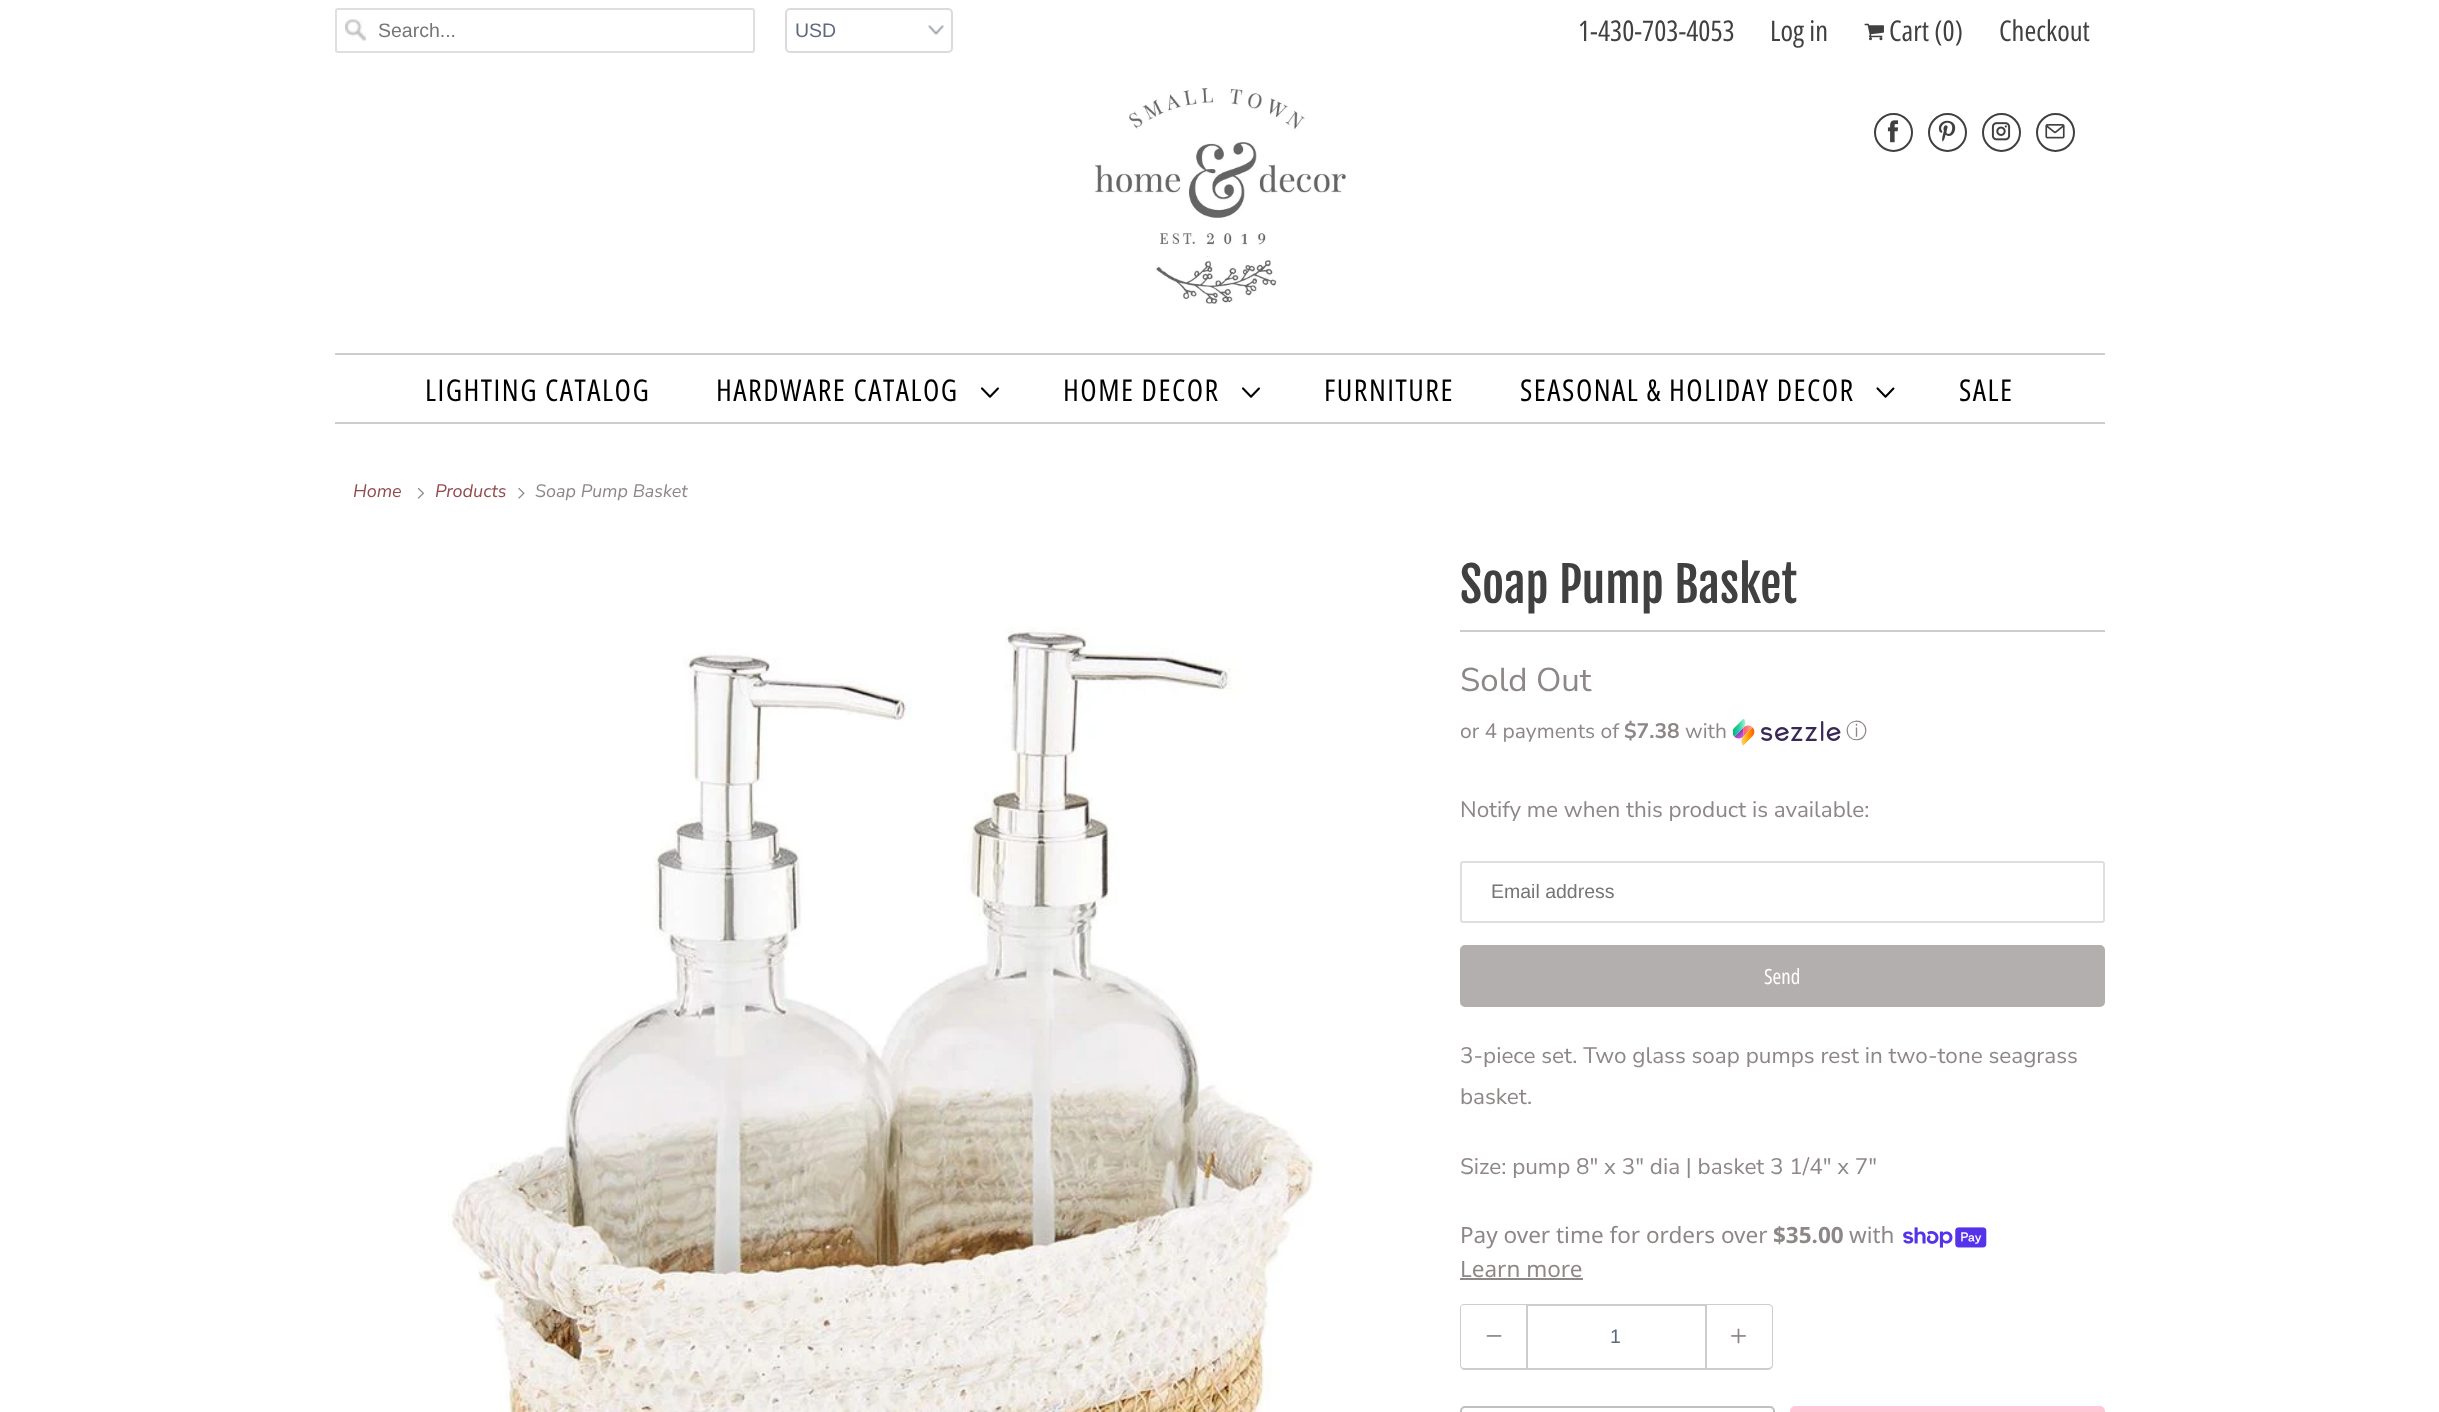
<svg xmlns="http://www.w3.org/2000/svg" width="2439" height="1412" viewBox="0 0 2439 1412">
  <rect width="100%" height="100%" fill="#fff"/>
  <image x="345" y="19" width="21" height="22" href="img/1.png"/>
  <rect x="336" y="9" width="418" height="43" rx="2" fill="none" stroke="#dfdfdf" stroke-width="2"/>
  <image x="928" y="25" width="16" height="10" href="img/2.png"/>
  <rect x="786" y="9" width="166" height="43" rx="4" fill="none" stroke="#d9dbdc" stroke-width="2"/>
  <image x="1864" y="23" width="20" height="18" href="img/3.png"/>
  <image x="1095" y="88" width="251" height="216" href="img/4.png"/>
  <circle cx="1893.5" cy="132.5" r="18.5" fill="none" stroke="#404040" stroke-width="2"/>
  <image x="1887" y="120" width="12" height="23" href="img/5.png"/>
  <circle cx="1947.5" cy="132.5" r="18.5" fill="none" stroke="#404040" stroke-width="2"/>
  <image x="1938" y="120" width="18" height="22" href="img/6.png"/>
  <circle cx="2001.5" cy="132.5" r="18.5" fill="none" stroke="#404040" stroke-width="2"/>
  <image x="1991" y="122" width="20" height="19" href="img/7.png"/>
  <circle cx="2055.5" cy="132.5" r="18.5" fill="none" stroke="#404040" stroke-width="2"/>
  <image x="2045" y="124" width="20" height="15" href="img/8.png"/>
  <path d="M335 353h1770v2H335z" fill="#cdcdcd"/>
  <path d="M335 422h1770v2H335z" fill="#cdcdcd"/>
  <image x="981" y="387" width="18" height="11" href="img/9.png"/>
  <image x="1242" y="387" width="18" height="11" href="img/9.png"/>
  <image x="1876" y="387" width="19" height="11" href="img/10.png"/>
  <image x="417" y="487" width="7" height="12" href="img/11.png"/>
  <image x="518" y="488" width="7" height="11" href="img/12.png"/>
  <image x="448" y="627" width="871" height="785" href="img/13.png"/>
  <path d="M1460 630h645v2H1460z" fill="#cdcdcd"/>
  <image x="1733" y="719" width="108" height="27" href="img/14.png"/>
  <rect x="1461" y="862" width="643" height="60" rx="2" fill="none" stroke="#dfdfdf" stroke-width="2"/>
  <rect x="1461" y="946" width="643" height="60" rx="4" fill="#b3afaf" stroke="#b3afaf" stroke-width="2"/>
  <image x="1903" y="1227" width="84" height="21" href="img/15.png"/>
  <path d="M1460 1278h123v2H1460z" fill="#8e8787"/>
  <path d="M1464 1304H1526V1370H1464C1462 1370 1460 1367 1460 1365V1308C1460 1306 1462 1304 1464 1304ZM1464 1305H1526V1368H1464C1462 1368 1461 1367 1461 1365V1308C1461 1306 1462 1305 1464 1305Z" fill="#cdcdcd" fill-rule="evenodd"/>
  <image x="1486" y="1335" width="16" height="2" href="img/16.png"/>
  <path d="M1527 1305h179v64H1527z" fill="none" stroke="#cdcdcd" stroke-width="2"/>
  <path d="M1707 1304H1768C1771 1304 1773 1306 1773 1308V1365C1773 1367 1771 1370 1768 1370H1707ZM1707 1305H1768C1770 1305 1772 1306 1772 1308V1365C1772 1367 1770 1368 1768 1368H1707Z" fill="#cdcdcd" fill-rule="evenodd"/>
  <image x="1731" y="1328" width="15" height="16" href="img/17.png"/>
  <rect x="1461" y="1407" width="313" height="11" rx="4" fill="none" stroke="#c2bfbf" stroke-width="2"/>
  <rect x="1791" y="1407" width="313" height="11" rx="4" fill="#ffc8d6" stroke="#ffc8d6" stroke-width="2"/>
  <text x="378" y="37" font-family="Liberation Sans" font-size="19.5" fill="#757575">Search...</text>
  <text x="795" y="37" font-family="Liberation Sans" font-size="19.5" fill="#5f6a7d">USD</text>
  <g font-family="Open Sans Condensed" font-size="28.5" fill="#404040">
    <text x="1578" y="41">1-430-703-4053</text>
    <text x="1770" y="41">Log in</text>
    <text x="1889" y="41">Cart (0)</text>
    <text x="1999" y="41">Checkout</text>
  </g>
  <g font-family="Open Sans Condensed" font-size="30" letter-spacing="1.5" fill="#000">
    <text x="425" y="401">LIGHTING CATALOG</text>
    <text x="716" y="401">HARDWARE CATALOG</text>
    <text x="1063" y="401">HOME DECOR</text>
    <text x="1324" y="401">FURNITURE</text>
    <text x="1520" y="401">SEASONAL &amp; HOLIDAY DECOR</text>
    <text x="1959" y="401">SALE</text>
  </g>
  <g font-family="Nunito Sans" font-size="18" font-style="italic" fill="#924a4d">
    <text x="353" y="497">Home</text>
    <text x="435" y="497">Products</text>
  </g>
  <text x="535" y="497" font-family="Nunito Sans" font-size="18" font-style="italic" fill="#8e8787">Soap Pump Basket</text>
  <text x="1460" y="603" font-family="Fjalla One" font-size="48" fill="#404040">Soap Pump Basket</text>
  <text x="1460" y="691" font-family="Nunito Sans" font-size="33" fill="#8e8787">Sold Out</text>
  <text x="1460" y="738" font-family="Nunito Sans" font-size="21" fill="#8e8787">or 4 payments of</text>
  <text x="1624" y="738" font-family="Nunito Sans" font-size="21" font-weight="bold" fill="#8e8787">$7.38</text>
  <text x="1685" y="738" font-family="Nunito Sans" font-size="21" fill="#8e8787">with</text>
  <text x="1846" y="738" font-family="WenQuanYi Zen Hei" font-size="21" font-weight="500" fill="#8e8787">ⓘ</text>
  <text x="1460" y="817" font-family="Nunito Sans" font-size="22.5" fill="#8e8787">Notify me when this product is available:</text>
  <text x="1491" y="898" font-family="Liberation Sans" font-size="19.5" fill="#757575">Email address</text>
  <text x="1764" y="984" font-family="Open Sans Condensed" font-size="21" fill="#fff">Send</text>
  <g font-family="Nunito Sans" font-size="22.5" fill="#8e8787">
    <text x="1460" y="1063">3-piece set. Two glass soap pumps rest in two-tone seagrass</text>
    <text x="1460" y="1104">basket.</text>
    <text x="1460" y="1174">Size: pump 8" x 3" dia | basket 3 1/4" x 7"</text>
  </g>
  <text x="1460" y="1243" font-family="Noto Sans" font-size="22.5" fill="#8e8787">Pay over time for orders over</text>
  <text x="1773" y="1243" font-family="Noto Sans" font-size="22.5" font-weight="bold" fill="#8e8787">$35.00</text>
  <g font-family="Noto Sans" font-size="22.5" fill="#8e8787">
    <text x="1849" y="1243">with</text>
    <text x="1460" y="1277">Learn more</text>
  </g>
  <text x="1610" y="1343" font-family="Liberation Sans" font-size="19.5" fill="#5f6a7d">1</text>
</svg>
